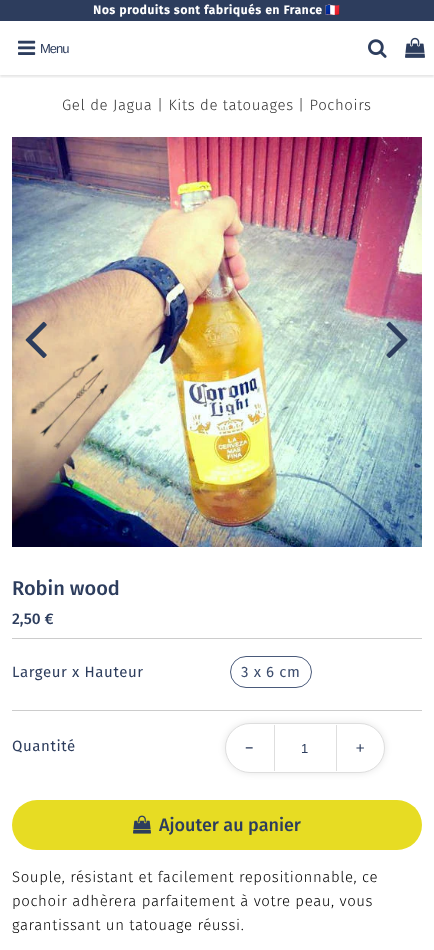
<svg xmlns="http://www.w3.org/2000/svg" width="434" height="950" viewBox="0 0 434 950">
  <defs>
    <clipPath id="clip1"><path d="M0 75h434v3H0z"/></clipPath>
  </defs>
  <rect width="100%" height="100%" fill="#fff"/>
  <g clip-path="url(#clip1)">
    <path d="M0 23h434v54H0z" fill="#0000001a" filter="blur(1px)"/>
  </g>
  <path d="M0 0h434v21H0z" fill="#2d3d5d"/>
  <image x="18" y="40" width="18" height="15" href="img/1.png"/>
  <image x="368" y="39" width="19" height="19" href="img/2.png"/>
  <image x="405" y="37" width="20" height="21" href="img/3.png"/>
  <image x="12" y="137" width="410" height="410" href="img/4.png"/>
  <image x="25" y="321" width="22" height="37" href="img/5.png"/>
  <image x="386" y="321" width="22" height="37" href="img/6.png"/>
  <path d="M12 638h410v1H12z" fill="#ccc"/>
  <rect x="230.5" y="656.5" width="81" height="31" rx="15.5" fill="none" stroke="#4a5a7a"/>
  <path d="M12 710h410v1H12z" fill="#ccc"/>
  <rect x="225" y="723" width="160" height="50" rx="25" fill="#0000001a" filter="blur(3.5px)"/>
  <rect x="225.5" y="723.5" width="159" height="49" rx="24.5" fill="#fff" stroke="#dedede"/>
  <path d="M336 725h1v46H336z" fill="#dedede"/>
  <path d="M274 725h1v46H274z" fill="#dedede"/>
  <rect x="12" y="800" width="410" height="50" rx="25" fill="#e7dc23"/>
  <image x="133" y="815" width="18" height="19" href="img/7.png"/>
  <text x="93" y="14" font-family="Fira Sans" font-size="12" font-weight="bold" letter-spacing="0.6" fill="#fff">Nos produits sont fabriqués en France</text>
  <text x="325" y="14" font-family="Noto Color Emoji" font-size="12" font-weight="bold" letter-spacing="0.6" fill="#fff">🇫🇷</text>
  <text x="40" y="53" font-family="Liberation Sans" font-size="13" letter-spacing="-1" fill="#2d3d5d">Menu</text>
  <g font-family="Fira Sans" font-size="15" font-weight="300" letter-spacing="0.6" fill="#333">
    <text x="62" y="110">Gel de Jagua</text>
    <text x="157" y="110">| Kits de tatouages</text>
    <text x="298" y="110">| Pochoirs</text>
  </g>
  <text x="12" y="595" font-family="Fira Sans" font-size="20" font-weight="500" fill="#2d3d5d">Robin wood</text>
  <text x="12" y="624" font-family="Fira Sans" font-size="15.5" font-weight="500" fill="#2d3d5d">2,50 €</text>
  <text x="12" y="677" font-family="Fira Sans" font-size="15" letter-spacing="0.6" fill="#2d3d5d">Largeur x Hauteur</text>
  <text x="241" y="677" font-family="Fira Sans" font-size="15" letter-spacing="0.6" fill="#3e4e6e">3 x 6 cm</text>
  <text x="12" y="751" font-family="Fira Sans" font-size="15" letter-spacing="0.6" fill="#2d3d5d">Quantité</text>
  <text x="244" y="756" font-family="Fira Sans" font-size="26" font-weight="300" letter-spacing="0.6" fill="#2d3d5d">-</text>
  <text x="301" y="753" font-family="Liberation Sans" font-size="13" fill="#2d3d5d">1</text>
  <text x="355" y="755" font-family="Fira Sans" font-size="21" font-weight="300" letter-spacing="0.6" fill="#2d3d5d">+</text>
  <text x="159" y="831" font-family="Fira Sans" font-size="18" font-weight="500" fill="#2d3d5d">Ajouter au panier</text>
  <g font-family="Fira Sans" font-size="15" font-weight="300" letter-spacing="0.6" fill="#000">
    <text x="12" y="882">Souple, résistant et facilement repositionnable, ce</text>
    <text x="12" y="906">pochoir adhèrera parfaitement à votre peau, vous</text>
    <text x="12" y="930">garantissant un tatouage réussi.</text>
  </g>
</svg>
